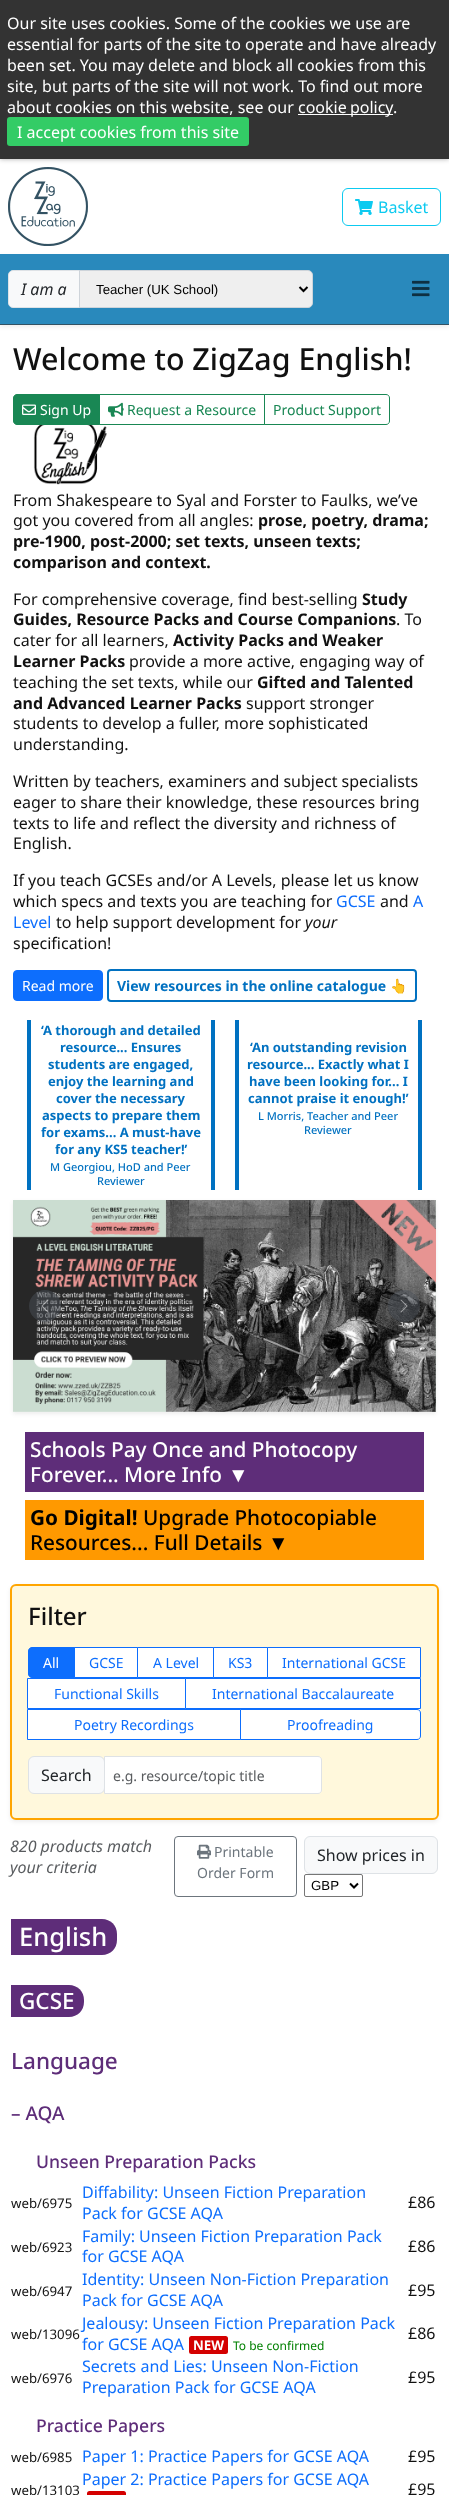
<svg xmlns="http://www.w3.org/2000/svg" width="449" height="2495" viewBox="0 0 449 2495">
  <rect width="100%" height="100%" fill="#fff"/>
  <image x="8" y="167" width="80" height="79" href="img/1.png"/>
  <path d="M0 0h449v159H0z" fill="#00000054" filter="blur(2.5px)"/>
  <path d="M0 0h449v159H0z" fill="#333"/>
  <path d="M298 114h95v1H298z" fill="#fff"/>
  <rect x="7" y="117" width="242" height="29" rx="3" fill="#3c6"/>
  <rect x="342.5" y="188.5" width="98" height="37" rx="5.5" fill="none" stroke="#0dcaf0"/>
  <image x="355" y="199" width="18" height="16" href="img/2.png"/>
  <path d="M0 256h449v71H0z" fill="#00000012" filter="blur(2px)"/>
  <path d="M0 254h449v70H0z" fill="#2989bc"/>
  <path d="M0 324h449v1H0z" fill="#335263"/>
  <path d="M13 270.5H79.5V307.5H13C10.5 307.5 8.5 305.5 8.5 303V275C8.5 272.5 10.5 270.5 13 270.5Z" fill="#f8f9fa" stroke="#dee2e6"/>
  <path d="M79.5 270.5H308C310.5 270.5 312.5 272.5 312.5 275V303C312.5 305.5 310.5 307.5 308 307.5H79.5Z" fill="#efefef" stroke="#ced4da"/>
  <path d="M299.5 287L303.5 291L307.5 287" fill="none" stroke="#000" stroke-width="2"/>
  <image x="412" y="280" width="18" height="17" href="img/3.png"/>
  <path d="M17 394.5H99.5V424.5H17C15 424.5 13.5 423 13.5 421V398C13.5 396 15 394.5 17 394.5Z" fill="#198754" stroke="#198754"/>
  <image x="22" y="404" width="14" height="11" href="img/4.png"/>
  <path d="M99.5 394.5h165v30H99.5z" fill="none" stroke="#198754"/>
  <image x="108" y="402" width="16" height="15" href="img/5.png"/>
  <path d="M264.5 394.5H386C388 394.5 389.5 396 389.5 398V421C389.5 423 388 424.5 386 424.5H264.5Z" fill="none" stroke="#198754"/>
  <image x="33" y="425" width="74" height="60" href="img/6.png"/>
  <rect x="13.5" y="970.5" width="89" height="30" rx="3.5" fill="#0d6efd" stroke="#0d6efd"/>
  <rect x="108" y="970" width="308" height="31" rx="3" fill="none" stroke="#0171c1" stroke-width="2"/>
  <path d="M211 1020h4v170H211z" fill="#0071c1"/>
  <path d="M27 1020h4v170H27z" fill="#0071c1"/>
  <path d="M418 1020h4v170H418z" fill="#0071c1"/>
  <path d="M235 1020h4v170H235z" fill="#0071c1"/>
  <path d="M13 1202h423v212H13z" fill="#00000012" filter="blur(2px)"/>
  <image x="13" y="1200" width="423" height="212" href="img/7.png"/>
  <circle cx="45" cy="1306" r="16" fill="#49505780"/>
  <image x="41" y="1299" width="8" height="14" href="img/8.png"/>
  <circle cx="404" cy="1306" r="16" fill="#49505780"/>
  <image x="400" y="1299" width="8" height="14" href="img/9.png"/>
  <path d="M25 1432h399v60H25z" fill="#5e2d79"/>
  <path d="M25 1500h399v60H25z" fill="#f90"/>
  <rect x="10" y="1586" width="429" height="236" rx="6" fill="#00000012" filter="blur(2px)"/>
  <rect x="11" y="1585" width="427" height="234" rx="5" fill="#fff8dc" stroke="#ffa500" stroke-width="2"/>
  <path d="M74.5 1647.5h63v30H74.5z" fill="#fff" stroke="#0d6efd"/>
  <path d="M32 1647.5H74.5V1677.5H32C30 1677.5 28.5 1676 28.5 1674V1651C28.5 1649 30 1647.5 32 1647.5Z" fill="#0d6efd" stroke="#0d6efd"/>
  <path d="M137.5 1647.5h76v30H137.5z" fill="#fff" stroke="#0d6efd"/>
  <path d="M213.5 1647.5h54v30H213.5z" fill="#fff" stroke="#0d6efd"/>
  <path d="M267.5 1647.5h153v30H267.5z" fill="#fff" stroke="#0d6efd"/>
  <path d="M27.5 1678.5h158v30H27.5z" fill="#fff" stroke="#0d6efd"/>
  <path d="M185.5 1678.5h235v30H185.5z" fill="#fff" stroke="#0d6efd"/>
  <path d="M27.5 1709.5h213v30H27.5z" fill="#fff" stroke="#0d6efd"/>
  <path d="M240.5 1709.5H417C419 1709.5 420.5 1711 420.5 1713V1736C420.5 1738 419 1739.5 417 1739.5H240.5Z" fill="#fff" stroke="#0d6efd"/>
  <rect x="28.5" y="1756.5" width="76" height="37" rx="5.5" fill="#f8f9fa" stroke="#dee2e6"/>
  <path d="M104.5 1756.5H318C320 1756.5 321.5 1758 321.5 1760V1790C321.5 1792 320 1793.5 318 1793.5H104.5Z" fill="#fff" stroke="#dee2e6"/>
  <rect x="174.5" y="1836.5" width="122" height="60" rx="3.5" fill="none" stroke="#6c757d"/>
  <image x="197" y="1844" width="14" height="15" href="img/10.png"/>
  <rect x="304.5" y="1836.5" width="133" height="37" rx="5.5" fill="#f8f9fa" stroke="#dee2e6"/>
  <rect x="304.5" y="1874.5" width="58" height="22" rx="1.5" fill="none" stroke="#767676"/>
  <path d="M350 1883.5L354 1887.5L358 1883.5" fill="none" stroke="#000" stroke-width="2"/>
  <path d="M11 1919H102C110.5 1919 117 1925.5 117 1934V1940C117 1948.5 110.5 1955 102 1955H11Z" fill="#5e2d79"/>
  <path d="M11 1985H69C77.5 1985 84 1991.5 84 2000V2002C84 2010.5 77.5 2017 69 2017H11Z" fill="#5e2d79"/>
  <rect x="189" y="2336" width="39" height="18" rx="2.5" fill="#d40000"/>
  <rect x="87" y="2491" width="39" height="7" rx="2.5" fill="#d40000"/>
  <g font-family="Noto Sans" font-size="16" fill="#fff">
    <text x="7" y="29">Our site uses cookies. Some of the cookies we use are</text>
    <text x="7" y="50">essential for parts of the site to operate and have already</text>
    <text x="7" y="71">been set. You may delete and block all cookies from this</text>
    <text x="7" y="92">site, but parts of the site will not work. To find out more</text>
    <text x="7" y="113">about cookies on this website, see our</text>
    <text x="298" y="113" word-spacing="-1">cookie policy</text>
    <text x="393" y="113">.</text>
    <text x="17" y="138">I accept cookies from this site</text>
  </g>
  <text x="378" y="213" font-family="Noto Sans" font-size="16" fill="#0dcaf0">Basket</text>
  <text x="21" y="295" font-family="Noto Sans" font-size="16" font-style="italic" fill="#212529">I am a</text>
  <text x="96" y="294" font-family="Liberation Sans" font-size="13.25" fill="#000">Teacher (UK School)</text>
  <text x="13" y="370" font-family="Noto Sans" font-size="30.4" font-weight="500" fill="#111">Welcome to ZigZag English!</text>
  <text x="40" y="415" font-family="Noto Sans" font-size="14" fill="#fff">Sign Up</text>
  <g font-family="Noto Sans" font-size="14" fill="#198754">
    <text x="127" y="415">Request a Resource</text>
    <text x="273" y="415">Product Support</text>
  </g>
  <g font-family="Noto Sans" font-size="16" fill="#111">
    <text x="13" y="506">From Shakespeare to Syal and Forster to Faulks, we’ve</text>
    <text x="13" y="526">got you covered from all angles:</text>
  </g>
  <g font-family="Noto Sans" font-size="16" font-weight="bold" fill="#111">
    <text x="258" y="526">prose, poetry, drama;</text>
    <text x="13" y="547">pre-1900, post-2000; set texts, unseen texts;</text>
    <text x="13" y="568">comparison and context.</text>
  </g>
  <text x="13" y="605" font-family="Noto Sans" font-size="16" fill="#111">For comprehensive coverage, find best-selling</text>
  <g font-family="Noto Sans" font-size="16" font-weight="bold" fill="#111">
    <text x="362" y="605">Study</text>
    <text x="13" y="625">Guides, Resource Packs and Course Companions</text>
  </g>
  <g font-family="Noto Sans" font-size="16" fill="#111">
    <text x="396" y="625">. To</text>
    <text x="13" y="646">cater for all learners,</text>
  </g>
  <g font-family="Noto Sans" font-size="16" font-weight="bold" fill="#111">
    <text x="173" y="646">Activity Packs and Weaker</text>
    <text x="13" y="667">Learner Packs</text>
  </g>
  <g font-family="Noto Sans" font-size="16" fill="#111">
    <text x="129" y="667">provide a more active, engaging way of</text>
    <text x="13" y="688">teaching the set texts, while our</text>
  </g>
  <g font-family="Noto Sans" font-size="16" font-weight="bold" fill="#111">
    <text x="257" y="688">Gifted and Talented</text>
    <text x="13" y="709">and Advanced Learner Packs</text>
  </g>
  <g font-family="Noto Sans" font-size="16" fill="#111">
    <text x="246" y="709">support stronger</text>
    <text x="13" y="729">students to develop a fuller, more sophisticated</text>
    <text x="13" y="750">understanding.</text>
    <text x="13" y="787">Written by teachers, examiners and subject specialists</text>
    <text x="13" y="808">eager to share their knowledge, these resources bring</text>
    <text x="13" y="829">texts to life and reflect the diversity and richness of</text>
    <text x="13" y="849">English.</text>
    <text x="13" y="886">If you teach GCSEs and/or A Levels, please let us know</text>
    <text x="13" y="907">which specs and texts you are teaching for</text>
  </g>
  <text x="336" y="907" font-family="Noto Sans" font-size="16" fill="#0d6efd">GCSE</text>
  <text x="380" y="907" font-family="Noto Sans" font-size="16" fill="#111">and</text>
  <g font-family="Noto Sans" font-size="16" fill="#0d6efd">
    <text x="413" y="907">A</text>
    <text x="13" y="928">Level</text>
  </g>
  <text x="56" y="928" font-family="Noto Sans" font-size="16" fill="#111">to help support development for</text>
  <text x="305" y="928" font-family="Noto Sans" font-size="16" font-style="italic" fill="#111">your</text>
  <text x="13" y="949" font-family="Noto Sans" font-size="16" fill="#111">specification!</text>
  <text x="22" y="991" font-family="Noto Sans" font-size="14" fill="#fff">Read more</text>
  <text x="117" y="991" font-family="Noto Sans" font-size="14" font-weight="bold" fill="#0171c1">View resources in the online catalogue</text>
  <text x="390" y="991" font-family="Noto Color Emoji" font-size="14" font-weight="bold" fill="#0171c1">👆</text>
  <g font-family="Noto Sans" font-size="13" font-weight="bold" fill="#0171c1">
    <text x="41" y="1035">‘A thorough and detailed</text>
    <text x="60" y="1052">resource... Ensures</text>
    <text x="48" y="1069">students are engaged,</text>
    <text x="48" y="1086">enjoy the learning and</text>
    <text x="56" y="1103">cover the necessary</text>
    <text x="42" y="1120">aspects to prepare them</text>
    <text x="41" y="1137">for exams... A must-have</text>
    <text x="55" y="1154">for any KS5 teacher!’</text>
  </g>
  <g font-family="Noto Sans" font-size="11" font-weight="500" fill="#0171c1">
    <text x="50" y="1171">M Georgiou, HoD and Peer</text>
    <text x="97" y="1185">Reviewer</text>
  </g>
  <g font-family="Noto Sans" font-size="13" font-weight="bold" fill="#0171c1">
    <text x="250" y="1052">‘An outstanding revision</text>
    <text x="247" y="1069">resource... Exactly what I</text>
    <text x="249" y="1086">have been looking for... I</text>
    <text x="248" y="1103">cannot praise it enough!’</text>
  </g>
  <g font-family="Noto Sans" font-size="11" font-weight="500" fill="#0171c1">
    <text x="258" y="1120">L Morris, Teacher and Peer</text>
    <text x="304" y="1134">Reviewer</text>
  </g>
  <g font-family="Noto Sans" font-size="20.75" font-weight="500" fill="#fff">
    <text x="30" y="1457">Schools Pay Once and Photocopy</text>
    <text x="30" y="1482">Forever... More Info</text>
  </g>
  <text x="228" y="1482" font-family="Liberation Sans" font-size="20.75" fill="#fff">▼</text>
  <text x="30" y="1525" font-family="Noto Sans" font-size="20.75" font-weight="bold" fill="#000">Go Digital!</text>
  <g font-family="Noto Sans" font-size="20.75" font-weight="500" fill="#000">
    <text x="143" y="1525">Upgrade Photocopiable</text>
    <text x="30" y="1550">Resources... Full Details</text>
  </g>
  <text x="268" y="1550" font-family="Liberation Sans" font-size="20.75" fill="#000">▼</text>
  <text x="28" y="1625" font-family="Noto Sans" font-size="24" font-weight="500" fill="#111">Filter</text>
  <text x="43" y="1668" font-family="Noto Sans" font-size="14" fill="#fff">All</text>
  <g font-family="Noto Sans" font-size="14" fill="#0d6efd">
    <text x="89" y="1668">GCSE</text>
    <text x="153" y="1668">A Level</text>
    <text x="228" y="1668">KS3</text>
    <text x="282" y="1668">International GCSE</text>
    <text x="54" y="1699">Functional Skills</text>
    <text x="212" y="1699">International Baccalaureate</text>
    <text x="74" y="1730">Poetry Recordings</text>
    <text x="287" y="1730">Proofreading</text>
  </g>
  <text x="41" y="1781" font-family="Noto Sans" font-size="16" fill="#212529">Search</text>
  <text x="113" y="1781" font-family="Noto Sans" font-size="14" fill="#595c5f">e.g. resource/topic title</text>
  <g font-family="Noto Sans" font-size="16" font-style="italic" fill="#595c5f">
    <text x="10" y="1852">820 products match</text>
    <text x="10" y="1873">your criteria</text>
  </g>
  <g font-family="Noto Sans" font-size="14" fill="#6c757d">
    <text x="214" y="1857">Printable</text>
    <text x="197" y="1878">Order Form</text>
  </g>
  <text x="317" y="1861" font-family="Noto Sans" font-size="16" fill="#212529">Show prices in</text>
  <text x="311" y="1890" font-family="Liberation Sans" font-size="13.25" fill="#000">GBP</text>
  <text x="19" y="1946" font-family="Noto Sans" font-size="25.5" font-weight="500" fill="#fff">English</text>
  <text x="19" y="2009" font-family="Noto Sans" font-size="22.5" font-weight="500" fill="#fff">GCSE</text>
  <text x="11" y="2069" font-family="Noto Sans" font-size="22.5" font-weight="500" fill="#5e2d79">Language</text>
  <text x="11" y="2120" font-family="Noto Sans" font-size="19" font-weight="500" fill="#5e2d79">– AQA</text>
  <text x="36" y="2168" font-family="Noto Sans" font-size="17.6" font-weight="500" fill="#5e2d79">Unseen Preparation Packs</text>
  <text x="11" y="2208" font-family="Noto Sans" font-size="13.25" fill="#111">web/6975</text>
  <g font-family="Noto Sans" font-size="16" fill="#0d6efd">
    <text x="82" y="2198">Diffability: Unseen Fiction Preparation</text>
    <text x="82" y="2219">Pack for GCSE AQA</text>
  </g>
  <text x="408" y="2208" font-family="Noto Sans" font-size="16" fill="#111">£86</text>
  <text x="11" y="2252" font-family="Noto Sans" font-size="13.25" fill="#111">web/6923</text>
  <g font-family="Noto Sans" font-size="16" fill="#0d6efd">
    <text x="82" y="2242">Family: Unseen Fiction Preparation Pack</text>
    <text x="82" y="2262">for GCSE AQA</text>
  </g>
  <text x="408" y="2252" font-family="Noto Sans" font-size="16" fill="#111">£86</text>
  <text x="11" y="2296" font-family="Noto Sans" font-size="13.25" fill="#111">web/6947</text>
  <g font-family="Noto Sans" font-size="16" fill="#0d6efd">
    <text x="82" y="2285">Identity: Unseen Non-Fiction Preparation</text>
    <text x="82" y="2306">Pack for GCSE AQA</text>
  </g>
  <text x="408" y="2296" font-family="Noto Sans" font-size="16" fill="#111">£95</text>
  <text x="11" y="2339" font-family="Noto Sans" font-size="13.25" fill="#111">web/13096</text>
  <g font-family="Noto Sans" font-size="16" fill="#0d6efd">
    <text x="82" y="2329">Jealousy: Unseen Fiction Preparation Pack</text>
    <text x="82" y="2350">for GCSE AQA</text>
  </g>
  <text x="193" y="2350" font-family="Noto Sans" font-size="13.25" font-weight="bold" fill="#fff">NEW</text>
  <text x="233" y="2350" font-family="Noto Sans" font-size="12" fill="#008000">To be confirmed</text>
  <text x="408" y="2339" font-family="Noto Sans" font-size="16" fill="#111">£86</text>
  <text x="11" y="2383" font-family="Noto Sans" font-size="13.25" fill="#111">web/6976</text>
  <g font-family="Noto Sans" font-size="16" fill="#0d6efd">
    <text x="82" y="2372">Secrets and Lies: Unseen Non-Fiction</text>
    <text x="82" y="2393">Preparation Pack for GCSE AQA</text>
  </g>
  <text x="408" y="2383" font-family="Noto Sans" font-size="16" fill="#111">£95</text>
  <text x="36" y="2432" font-family="Noto Sans" font-size="17.6" font-weight="500" fill="#5e2d79">Practice Papers</text>
  <text x="11" y="2462" font-family="Noto Sans" font-size="13.25" fill="#111">web/6985</text>
  <text x="82" y="2462" font-family="Noto Sans" font-size="16" fill="#0d6efd">Paper 1: Practice Papers for GCSE AQA</text>
  <text x="408" y="2462" font-family="Noto Sans" font-size="16" fill="#111">£95</text>
  <text x="11" y="2495" font-family="Noto Sans" font-size="13.25" fill="#111">web/13103</text>
  <text x="82" y="2485" font-family="Noto Sans" font-size="16" fill="#0d6efd">Paper 2: Practice Papers for GCSE AQA</text>
  <text x="408" y="2495" font-family="Noto Sans" font-size="16" fill="#111">£95</text>
</svg>
